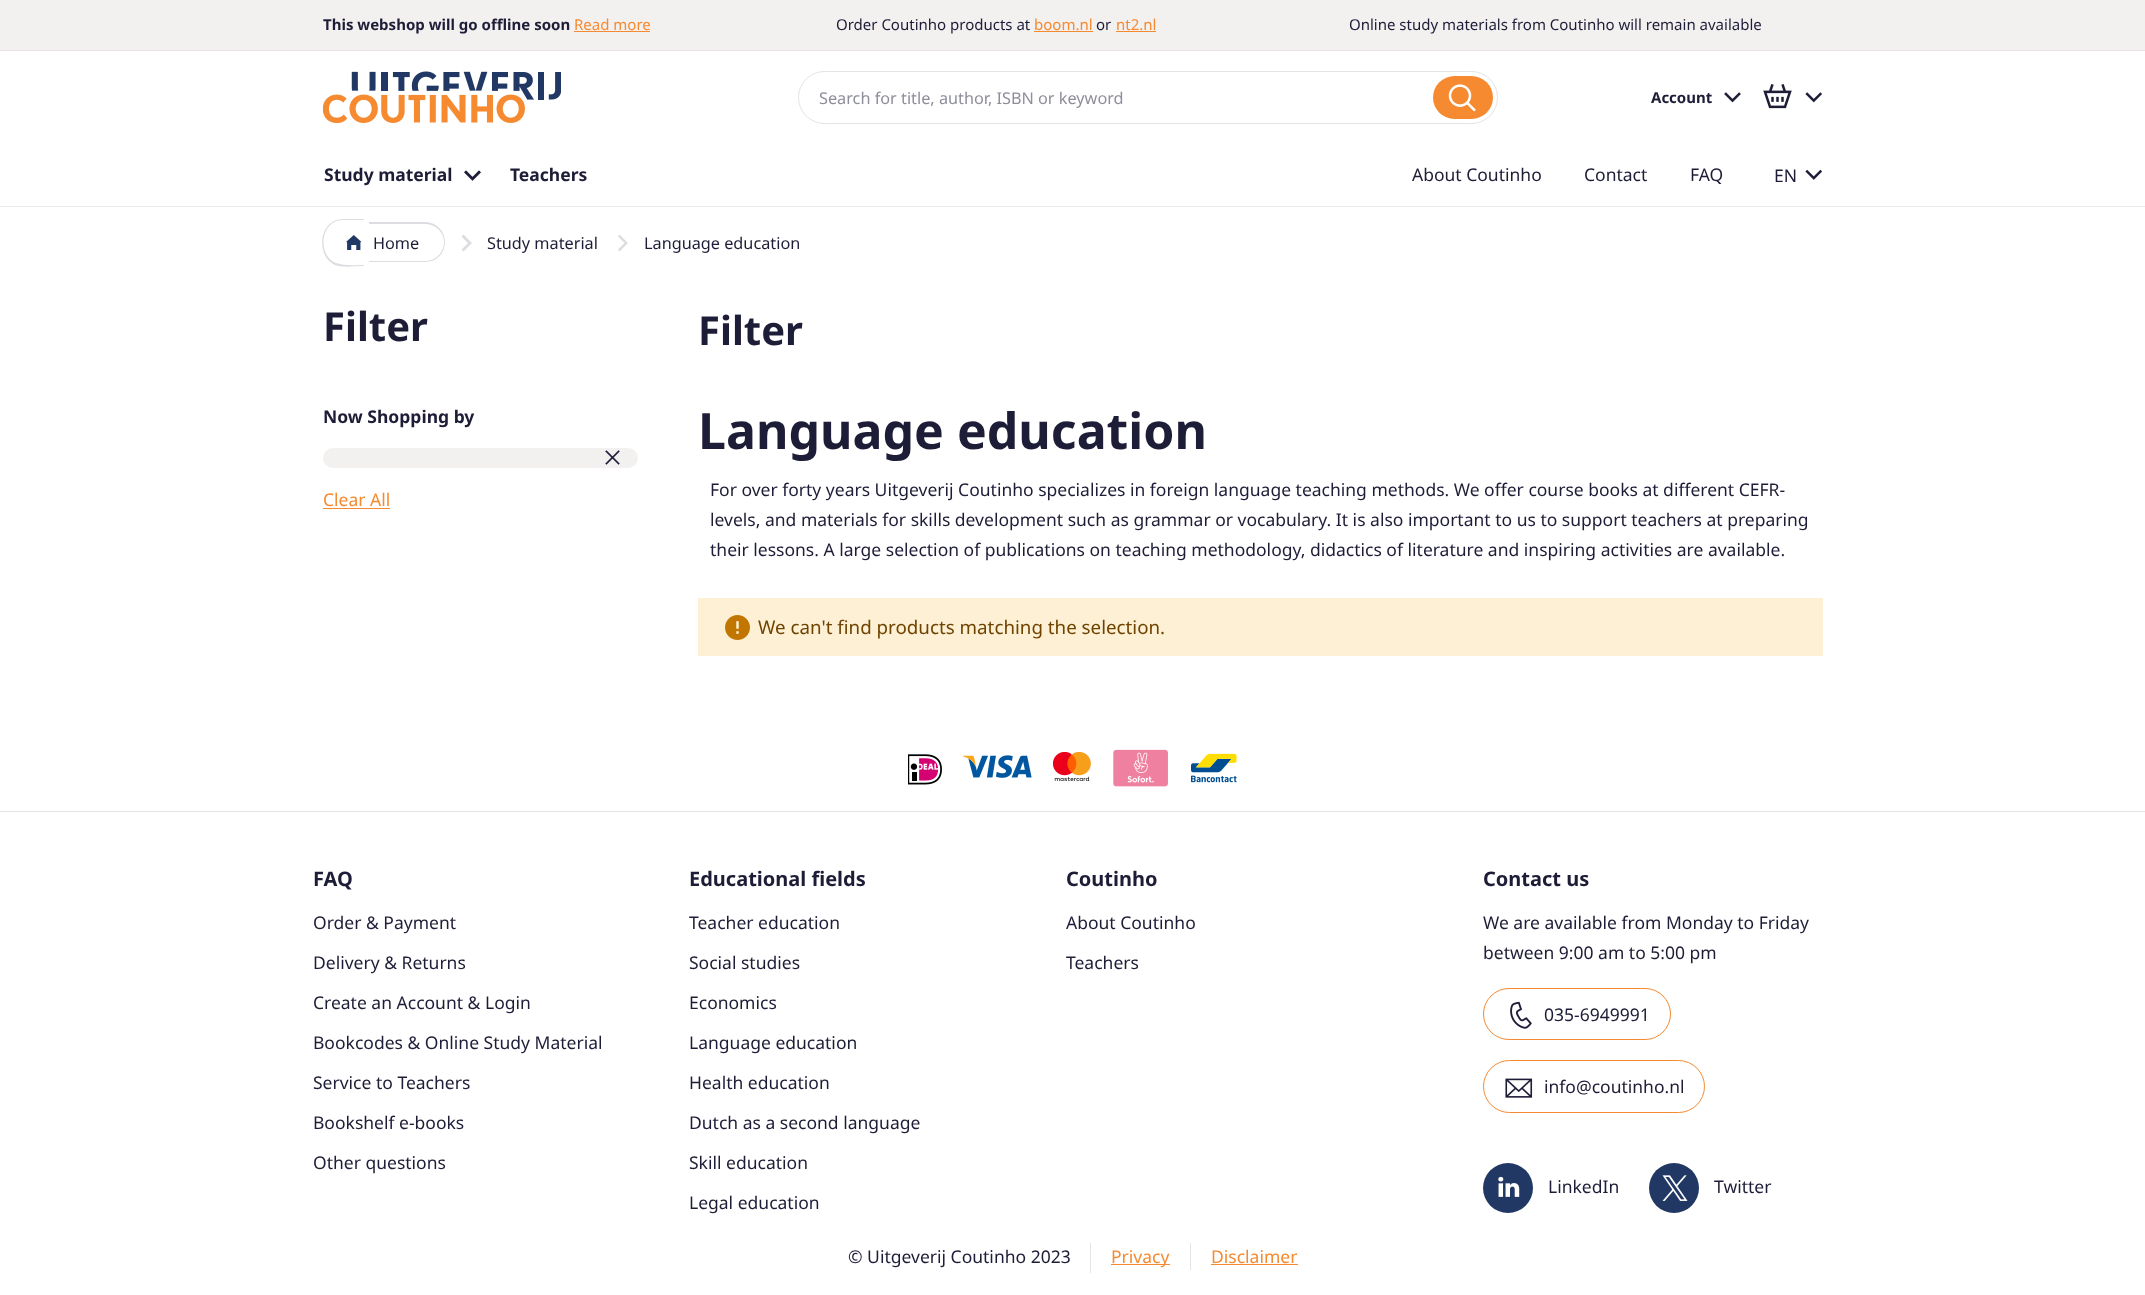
<svg xmlns="http://www.w3.org/2000/svg" width="2145" height="1295" viewBox="0 0 2145 1295">
  <rect width="100%" height="100%" fill="#fff"/>
  <path d="M0 0h2145v50H0z" fill="#f3f0f0"/>
  <path d="M0 50h2145v1H0z" fill="#e8e3e3"/>
  <path d="M574 31h76v1H574z" fill="#f58a30"/>
  <path d="M1034 31h59v1H1034z" fill="#f58a30"/>
  <path d="M1116 31h40v1H1116z" fill="#f58a30"/>
  <image x="323" y="71" width="238" height="53" href="img/1.png"/>
  <rect x="798.5" y="71.5" width="699" height="52" rx="26" fill="none" stroke="#e4e4e7"/>
  <rect x="1433" y="76" width="60" height="43" rx="21.5" fill="#f58a30"/>
  <image x="1448" y="84" width="28" height="28" href="img/2.png"/>
  <image x="1724" y="92" width="17" height="11" href="img/3.png"/>
  <image x="1763" y="84" width="29" height="25" href="img/4.png"/>
  <image x="1805" y="92" width="17" height="11" href="img/5.png"/>
  <path d="M0 206h2145v1H0z" fill="#ebebeb"/>
  <image x="464" y="170" width="17" height="11" href="img/6.png"/>
  <image x="1805" y="169" width="17" height="11" href="img/7.png"/>
  <path d="M343 219H364V266C356 266 342 268 335 265C315 256 319 219 343 219ZM343 220H364V265C356 265 343 266 336 263C317 256 320 220 343 220Z" fill="#dddde1" fill-rule="evenodd"/>
  <path d="M369 222H425C436 222 445 231 445 242C445 254 436 262 425 262H369ZM369 224H425C435 224 444 232 444 242C444 253 435 261 425 261H369Z" fill="#dddde1" fill-rule="evenodd"/>
  <image x="346" y="235" width="16" height="15" href="img/8.png"/>
  <path d="M468 243L461.5 236.5L463.5 234.5L472 243L463.5 251.5L461.5 249.5Z" fill="#dddde1"/>
  <path d="M624.5 243L618 236.5L619.5 234.5L628 243L619.5 251.5L618 249.5Z" fill="#dddde1"/>
  <rect x="323" y="448" width="315" height="20" rx="10" fill="#f3f0f0"/>
  <image x="605" y="450" width="15" height="15" href="img/9.png"/>
  <path d="M323 508h67v1H323z" fill="#f58a30"/>
  <path d="M698 598h1125v58H698z" fill="#fdf0d5"/>
  <image x="725" y="615" width="25" height="25" href="img/10.png"/>
  <path d="M0 811h2145v1H0z" fill="#e4e4e7"/>
  <image x="908" y="754" width="34" height="31" href="img/11.png"/>
  <image x="963" y="755" width="69" height="23" href="img/12.png"/>
  <image x="1053" y="752" width="38" height="29" href="img/13.png"/>
  <image x="1113" y="749" width="55" height="38" href="img/14.png"/>
  <image x="1191" y="753" width="46" height="30" href="img/15.png"/>
  <rect x="1483.5" y="988.5" width="187" height="51" rx="25.5" fill="none" stroke="#f58a30"/>
  <image x="1510" y="1001" width="22" height="28" href="img/16.png"/>
  <rect x="1483.5" y="1060.5" width="221" height="52" rx="26" fill="none" stroke="#f58a30"/>
  <image x="1505" y="1078" width="28" height="20" href="img/17.png"/>
  <circle cx="1508" cy="1188" r="25" fill="#213864"/>
  <image x="1498" y="1176" width="22" height="21" href="img/18.png"/>
  <circle cx="1674" cy="1188" r="25" fill="#213864"/>
  <image x="1662" y="1175" width="26" height="26" href="img/19.png"/>
  <path d="M1090 1243h1v30H1090z" fill="#e4e4e7"/>
  <path d="M1190 1243h1v27H1190z" fill="#e4e4e7"/>
  <path d="M1111 1264h59v1H1111z" fill="#f58a30"/>
  <path d="M1211 1264h87v1H1211z" fill="#f58a30"/>
  <text x="323" y="30" font-family="Noto Sans" font-size="15" font-weight="bold" fill="#1e1d37">This webshop will go offline soon</text>
  <text x="574" y="30" font-family="Noto Sans" font-size="15" fill="#f58a30">Read more</text>
  <text x="836" y="30" font-family="Noto Sans" font-size="15" fill="#1e1d37">Order Coutinho products at</text>
  <text x="1034" y="30" font-family="Noto Sans" font-size="15" fill="#f58a30">boom.nl</text>
  <text x="1096" y="30" font-family="Noto Sans" font-size="15" fill="#1e1d37">or</text>
  <text x="1116" y="30" font-family="Noto Sans" font-size="15" fill="#f58a30">nt2.nl</text>
  <text x="1349" y="30" font-family="Noto Sans" font-size="15" fill="#1e1d37">Online study materials from Coutinho will remain available</text>
  <text x="819" y="104" font-family="Noto Sans" font-size="16.25" fill="#8e8e9b">Search for title, author, ISBN or keyword</text>
  <text x="1651" y="103" font-family="Noto Sans" font-size="15" font-weight="bold" fill="#1e1d37">Account</text>
  <g font-family="Noto Sans" font-size="17.5" font-weight="bold" fill="#1e1d37">
    <text x="324" y="181">Study material</text>
    <text x="510" y="181">Teachers</text>
  </g>
  <g font-family="Noto Sans" font-size="17.5" fill="#1e1d37">
    <text x="1412" y="181">About Coutinho</text>
    <text x="1584" y="181">Contact</text>
    <text x="1690" y="181">FAQ</text>
    <text x="1774" y="182">EN</text>
  </g>
  <g font-family="Noto Sans" font-size="16.25" fill="#1e1d37">
    <text x="373" y="249">Home</text>
    <text x="487" y="249">Study material</text>
    <text x="644" y="249">Language education</text>
  </g>
  <text x="323" y="341" font-family="Noto Sans" font-size="40" font-weight="bold" fill="#1e1d37">Filter</text>
  <text x="323" y="423" font-family="Noto Sans" font-size="17.5" font-weight="bold" fill="#1e1d37">Now Shopping by</text>
  <text x="323" y="506" font-family="Noto Sans" font-size="17.5" fill="#f58a30">Clear All</text>
  <text x="698" y="345" font-family="Noto Sans" font-size="40" font-weight="bold" fill="#1e1d37">Filter</text>
  <text x="698" y="449" font-family="Noto Sans" font-size="50" font-weight="bold" fill="#1e1d37">Language education</text>
  <g font-family="Noto Sans" font-size="17.5" fill="#1e1d37">
    <text x="710" y="496">For over forty years Uitgeverij Coutinho specializes in foreign language teaching methods. We offer course books at different CEFR-</text>
    <text x="710" y="526">levels, and materials for skills development such as grammar or vocabulary. It is also important to us to support teachers at preparing</text>
    <text x="710" y="556">their lessons. A large selection of publications on teaching methodology, didactics of literature and inspiring activities are available.</text>
  </g>
  <text x="758" y="634" font-family="Noto Sans" font-size="18.75" fill="#6f4400">We can't find products matching the selection.</text>
  <text x="313" y="886" font-family="Noto Sans" font-size="20" font-weight="bold" fill="#1e1d37">FAQ</text>
  <g font-family="Noto Sans" font-size="17.5" fill="#1e1d37">
    <text x="313" y="929">Order &amp; Payment</text>
    <text x="313" y="969">Delivery &amp; Returns</text>
    <text x="313" y="1009">Create an Account &amp; Login</text>
    <text x="313" y="1049">Bookcodes &amp; Online Study Material</text>
    <text x="313" y="1089">Service to Teachers</text>
    <text x="313" y="1129">Bookshelf e-books</text>
    <text x="313" y="1169">Other questions</text>
  </g>
  <text x="689" y="886" font-family="Noto Sans" font-size="20" font-weight="bold" fill="#1e1d37">Educational fields</text>
  <g font-family="Noto Sans" font-size="17.5" fill="#1e1d37">
    <text x="689" y="929">Teacher education</text>
    <text x="689" y="969">Social studies</text>
    <text x="689" y="1009">Economics</text>
    <text x="689" y="1049">Language education</text>
    <text x="689" y="1089">Health education</text>
    <text x="689" y="1129">Dutch as a second language</text>
    <text x="689" y="1169">Skill education</text>
    <text x="689" y="1209">Legal education</text>
  </g>
  <text x="1066" y="886" font-family="Noto Sans" font-size="20" font-weight="bold" fill="#1e1d37">Coutinho</text>
  <g font-family="Noto Sans" font-size="17.5" fill="#1e1d37">
    <text x="1066" y="929">About Coutinho</text>
    <text x="1066" y="969">Teachers</text>
  </g>
  <text x="1483" y="886" font-family="Noto Sans" font-size="20" font-weight="bold" fill="#1e1d37">Contact us</text>
  <g font-family="Noto Sans" font-size="17.5" fill="#1e1d37">
    <text x="1483" y="929">We are available from Monday to Friday</text>
    <text x="1483" y="959">between 9:00 am to 5:00 pm</text>
    <text x="1544" y="1021">035-6949991</text>
    <text x="1544" y="1093">info@coutinho.nl</text>
    <text x="1548" y="1193">LinkedIn</text>
    <text x="1714" y="1193">Twitter</text>
    <text x="848" y="1263">© Uitgeverij Coutinho 2023</text>
  </g>
  <g font-family="Noto Sans" font-size="17.5" fill="#f58a30">
    <text x="1111" y="1263">Privacy</text>
    <text x="1211" y="1263">Disclaimer</text>
  </g>
</svg>
